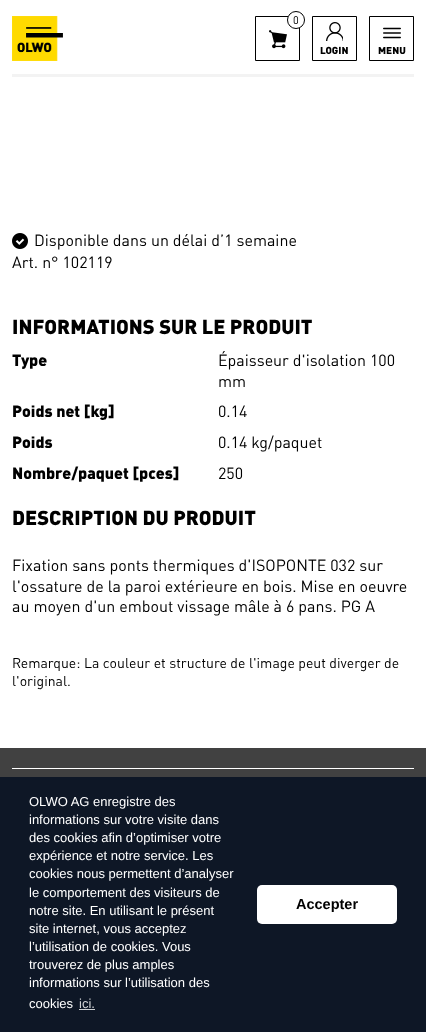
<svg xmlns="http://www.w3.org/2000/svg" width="426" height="1032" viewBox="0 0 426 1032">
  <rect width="100%" height="100%" fill="#fff"/>
  <image x="12" y="16" width="51" height="45" href="img/1.png"/>
  <path d="M255.5 16.5h44v44H255.5z" fill="none" stroke="#000"/>
  <circle cx="296" cy="20" r="8.5" fill="#fff" stroke="#000"/>
  <image x="269" y="30" width="18" height="19" href="img/2.png"/>
  <path d="M312.5 16.5h44v44H312.5z" fill="none" stroke="#000"/>
  <image x="326" y="22" width="17" height="19" href="img/3.png"/>
  <path d="M369.5 16.5h44v44H369.5z" fill="none" stroke="#000"/>
  <image x="383" y="27" width="18" height="12" href="img/4.png"/>
  <path d="M12 74h402v3H12z" fill="#f3f3f3"/>
  <image x="12" y="233" width="16" height="16" href="img/5.png"/>
  <path d="M0 748h426v29H0z" fill="#414141"/>
  <path d="M12 768h402v1H12z" fill="#fff"/>
  <path d="M0 777h426v255H0z" fill="#0e1726"/>
  <path d="M79 1009h16v1H79z" fill="#cfd1d4"/>
  <rect x="257" y="885" width="140" height="39" rx="5" fill="#fff"/>
  <text x="293" y="24" font-family="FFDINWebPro" font-size="11" fill="#000">0</text>
  <g font-family="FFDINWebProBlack" font-size="10" fill="#000">
    <text x="320" y="54">LOGIN</text>
    <text x="378" y="54">MENU</text>
  </g>
  <g font-family="FFDINWebPro" font-size="16" fill="#000">
    <text x="34" y="246">Disponible dans un délai d’1 semaine</text>
    <text x="12" y="268">Art. n° 102119</text>
  </g>
  <text x="12" y="334" font-family="FFDINWebProBlack" font-size="20" fill="#000">INFORMATIONS SUR LE PRODUIT</text>
  <text x="12" y="366" font-family="FFDINWebProBlack" font-size="16" fill="#000">Type</text>
  <g font-family="FFDINWebPro" font-size="16" fill="#000">
    <text x="218" y="366">Épaisseur d'isolation 100</text>
    <text x="218" y="387">mm</text>
  </g>
  <text x="12" y="417" font-family="FFDINWebProBlack" font-size="16" fill="#000">Poids net [kg]</text>
  <text x="218" y="417" font-family="FFDINWebPro" font-size="16" fill="#000">0.14</text>
  <text x="12" y="448" font-family="FFDINWebProBlack" font-size="16" fill="#000">Poids</text>
  <text x="218" y="448" font-family="FFDINWebPro" font-size="16" fill="#000">0.14 kg/paquet</text>
  <text x="12" y="479" font-family="FFDINWebProBlack" font-size="16" fill="#000">Nombre/paquet [pces]</text>
  <text x="218" y="479" font-family="FFDINWebPro" font-size="16" fill="#000">250</text>
  <text x="12" y="525" font-family="FFDINWebProBlack" font-size="20" fill="#000">DESCRIPTION DU PRODUIT</text>
  <g font-family="FFDINWebPro" font-size="16" fill="#000">
    <text x="12" y="571">Fixation sans ponts thermiques d'ISOPONTE 032 sur</text>
    <text x="12" y="592">l'ossature de la paroi extérieure en bois. Mise en oeuvre</text>
    <text x="12" y="612">au moyen d'un embout vissage mâle à 6 pans. PG A</text>
  </g>
  <g font-family="FFDINWebPro" font-size="14" fill="#000">
    <text x="12" y="668">Remarque: La couleur et structure de l'image peut diverger de</text>
    <text x="12" y="686">l'original.</text>
  </g>
  <g font-family="Liberation Sans" font-size="13" fill="#fff">
    <text x="29" y="806">OLWO AG enregistre des</text>
    <text x="29" y="824">informations sur votre visite dans</text>
    <text x="29" y="842">des cookies afin d’optimiser votre</text>
    <text x="29" y="860">expérience et notre service. Les</text>
    <text x="29" y="878">cookies nous permettent d’analyser</text>
    <text x="29" y="897">le comportement des visiteurs de</text>
    <text x="29" y="915">notre site. En utilisant le présent</text>
    <text x="29" y="933">site internet, vous acceptez</text>
    <text x="29" y="951">l’utilisation de cookies. Vous</text>
    <text x="29" y="969">trouverez de plus amples</text>
    <text x="29" y="987">informations sur l’utilisation des</text>
    <text x="29" y="1008">cookies</text>
  </g>
  <text x="79" y="1008" font-family="Liberation Sans" font-size="13" fill="#cfd1d4">ici.</text>
  <text x="296" y="909" font-family="Liberation Sans" font-size="14.5" font-weight="bold" fill="#000">Accepter</text>
</svg>
